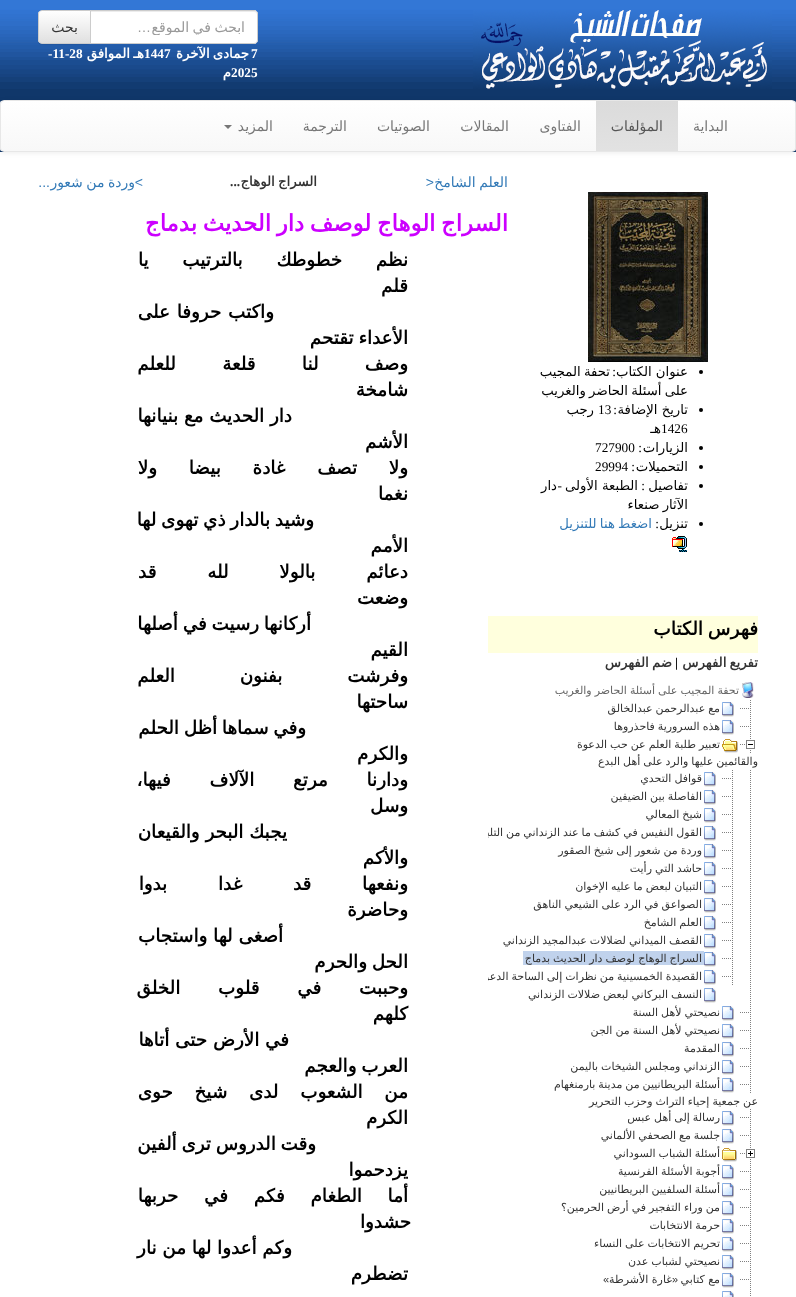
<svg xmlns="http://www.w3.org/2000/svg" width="796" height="1297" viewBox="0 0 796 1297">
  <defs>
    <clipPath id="clip1"><path d="M42 10H91V44H42C40 44 38 42 38 40V14C38 12 40 10 42 10Z"/></clipPath>
    <linearGradient id="g1" gradientUnits="userSpaceOnUse" x1="65" y1="11" x2="65" y2="43"><stop offset="0" stop-color="#fff"/><stop offset="1" stop-color="#e0e0e0"/></linearGradient>
    <clipPath id="clip2"><rect y="100" width="796" height="52" rx="4"/></clipPath>
    <linearGradient id="g2" gradientUnits="userSpaceOnUse" x1="398" y1="101" x2="398" y2="151"><stop offset="0" stop-color="#fff"/><stop offset="1" stop-color="#f8f8f8"/></linearGradient>
    <linearGradient id="g3" gradientUnits="userSpaceOnUse" x1="637" y1="101" x2="637" y2="151"><stop offset="0" stop-color="#dbdbdb"/><stop offset="1" stop-color="#e2e2e2"/></linearGradient>
    <clipPath id="clip3"><path d="M103 19h142v16H103z"/></clipPath>
    <clipPath id="clip4"><path d="M488 700h270v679H488z"/></clipPath>
    <clipPath id="clip5"><path d="M488 770h270v234H488z"/></clipPath>
  </defs>
  <rect width="100%" height="100%" fill="#fff"/>
  <path d="M0 89h796v63H0z" fill="#10376a"/>
  <image x="0" y="0" width="796" height="89" href="img/1.png"/>
  <image x="473" y="10" width="299" height="79" href="img/2.png"/>
  <path d="M90 10H254C256 10 258 12 258 14V40C258 42 256 44 254 44H90Z" fill="#fff"/>
  <path d="M91 12H254C256 12 257 13 257 15C257 13 256 11 254 11H91Z" fill="#ececec"/>
  <path d="M90.5 10.5H254C256 10.5 257.5 12 257.5 14V40C257.5 42 256 43.5 254 43.5H90.5Z" fill="none" stroke="#ccc"/>
  <rect x="38" y="11" width="53" height="34" rx="4" fill="#00000012" filter="blur(0.5px)"/>
  <g clip-path="url(#clip1)">
    <path d="M38 11h52v32H38z" fill="url(#g1)"/>
  </g>
  <path d="M42 10.5H90.5V43.5H42C40 43.5 38.5 42 38.5 40V14C38.5 12 40 10.5 42 10.5Z" fill="none" stroke="#ccc"/>
  <rect y="101" width="796" height="52" rx="4" fill="#00000012" filter="blur(2.5px)"/>
  <g clip-path="url(#clip2)">
    <path d="M0 101h796v50H0z" fill="url(#g2)"/>
  </g>
  <rect x="0.5" y="100.5" width="795" height="51" rx="3.5" fill="none" stroke="#e7e7e7"/>
  <path d="M596 101h82v50H596z" fill="url(#g3)"/>
  <path d="M224 125H232L228 129Z" fill="#777"/>
  <image x="588" y="192" width="120" height="170" href="img/3.png"/>
  <circle cx="701" cy="372" r="2" fill="#000"/>
  <circle cx="701" cy="410" r="2" fill="#000"/>
  <circle cx="701" cy="448" r="2" fill="#000"/>
  <circle cx="701" cy="467" r="2" fill="#000"/>
  <circle cx="701" cy="486" r="2" fill="#000"/>
  <circle cx="701" cy="524" r="2" fill="#000"/>
  <image x="672" y="536" width="15" height="16" href="img/4.png"/>
  <path d="M488 616h270v37H488z" fill="#ffd"/>
  <image x="742" y="682" width="12" height="16" href="img/5.png"/>
  <image x="740" y="700" width="11" height="17" href="img/6.png"/>
  <image x="722" y="702" width="12" height="15" href="img/7.png"/>
  <image x="740" y="718" width="11" height="17" href="img/6.png"/>
  <image x="722" y="720" width="12" height="15" href="img/7.png"/>
  <image x="740" y="736" width="15" height="17" href="img/8.png"/>
  <image x="722" y="739" width="16" height="14" href="img/9.png"/>
  <image x="750" y="770" width="1" height="17" href="img/10.png"/>
  <image x="722" y="770" width="11" height="17" href="img/6.png"/>
  <image x="704" y="772" width="12" height="15" href="img/7.png"/>
  <image x="750" y="788" width="1" height="17" href="img/10.png"/>
  <image x="722" y="788" width="11" height="17" href="img/6.png"/>
  <image x="704" y="790" width="12" height="15" href="img/7.png"/>
  <image x="750" y="806" width="1" height="17" href="img/10.png"/>
  <image x="722" y="806" width="11" height="17" href="img/6.png"/>
  <image x="704" y="808" width="12" height="15" href="img/7.png"/>
  <image x="750" y="824" width="1" height="17" href="img/10.png"/>
  <image x="722" y="824" width="11" height="17" href="img/6.png"/>
  <image x="704" y="826" width="12" height="15" href="img/7.png"/>
  <image x="750" y="842" width="1" height="17" href="img/10.png"/>
  <image x="722" y="842" width="11" height="17" href="img/6.png"/>
  <image x="704" y="844" width="12" height="15" href="img/7.png"/>
  <image x="750" y="860" width="1" height="17" href="img/10.png"/>
  <image x="722" y="860" width="11" height="17" href="img/6.png"/>
  <image x="704" y="862" width="12" height="15" href="img/7.png"/>
  <image x="750" y="878" width="1" height="17" href="img/10.png"/>
  <image x="722" y="878" width="11" height="17" href="img/6.png"/>
  <image x="704" y="880" width="12" height="15" href="img/7.png"/>
  <image x="750" y="896" width="1" height="17" href="img/10.png"/>
  <image x="722" y="896" width="11" height="17" href="img/6.png"/>
  <image x="704" y="898" width="12" height="15" href="img/7.png"/>
  <image x="750" y="914" width="1" height="17" href="img/10.png"/>
  <image x="722" y="914" width="11" height="17" href="img/6.png"/>
  <image x="704" y="916" width="12" height="15" href="img/7.png"/>
  <image x="750" y="932" width="1" height="17" href="img/10.png"/>
  <image x="722" y="932" width="11" height="17" href="img/6.png"/>
  <image x="704" y="934" width="12" height="15" href="img/7.png"/>
  <image x="750" y="950" width="1" height="17" href="img/10.png"/>
  <image x="722" y="950" width="11" height="17" href="img/6.png"/>
  <image x="704" y="952" width="12" height="15" href="img/7.png"/>
  <path d="M523 951h181v14H523z" fill="#c0d2ec"/>
  <image x="750" y="968" width="1" height="17" href="img/10.png"/>
  <image x="722" y="968" width="11" height="17" href="img/6.png"/>
  <image x="704" y="970" width="12" height="15" href="img/7.png"/>
  <image x="750" y="986" width="1" height="17" href="img/10.png"/>
  <image x="704" y="988" width="12" height="15" href="img/7.png"/>
  <image x="740" y="1004" width="11" height="17" href="img/6.png"/>
  <image x="722" y="1006" width="12" height="15" href="img/7.png"/>
  <image x="740" y="1022" width="11" height="17" href="img/6.png"/>
  <image x="722" y="1024" width="12" height="15" href="img/7.png"/>
  <image x="740" y="1040" width="11" height="17" href="img/6.png"/>
  <image x="722" y="1042" width="12" height="15" href="img/7.png"/>
  <image x="740" y="1058" width="11" height="17" href="img/6.png"/>
  <image x="722" y="1060" width="12" height="15" href="img/7.png"/>
  <image x="740" y="1076" width="11" height="17" href="img/6.png"/>
  <image x="722" y="1078" width="12" height="15" href="img/7.png"/>
  <image x="740" y="1109" width="11" height="17" href="img/6.png"/>
  <image x="722" y="1111" width="12" height="15" href="img/7.png"/>
  <image x="740" y="1127" width="11" height="17" href="img/6.png"/>
  <image x="722" y="1129" width="12" height="15" href="img/7.png"/>
  <image x="740" y="1145" width="15" height="17" href="img/11.png"/>
  <image x="722" y="1148" width="15" height="14" href="img/12.png"/>
  <image x="740" y="1163" width="11" height="17" href="img/6.png"/>
  <image x="722" y="1165" width="12" height="15" href="img/7.png"/>
  <image x="740" y="1181" width="11" height="17" href="img/6.png"/>
  <image x="722" y="1183" width="12" height="15" href="img/7.png"/>
  <image x="740" y="1199" width="11" height="17" href="img/6.png"/>
  <image x="722" y="1201" width="12" height="15" href="img/7.png"/>
  <image x="740" y="1217" width="11" height="17" href="img/6.png"/>
  <image x="722" y="1219" width="12" height="15" href="img/7.png"/>
  <image x="740" y="1235" width="11" height="17" href="img/6.png"/>
  <image x="722" y="1237" width="12" height="15" href="img/7.png"/>
  <image x="740" y="1253" width="11" height="17" href="img/6.png"/>
  <image x="722" y="1255" width="12" height="15" href="img/7.png"/>
  <image x="740" y="1271" width="11" height="17" href="img/6.png"/>
  <image x="722" y="1273" width="12" height="15" href="img/7.png"/>
  <image x="750" y="1289" width="1" height="7" href="img/13.png"/>
  <image x="722" y="1291" width="12" height="6" href="img/14.png"/>
  <g clip-path="url(#clip3)">
    <text x="245" y="32" word-spacing="-1" font-family="DejaVu Sans" font-size="14" direction="rtl" fill="#999">ابحث في الموقع</text>
  </g>
  <text x="151" y="32" font-family="Liberation Sans" font-size="14" direction="rtl" fill="#999">…</text>
  <text x="78" y="32" font-family="DejaVu Sans" font-size="14" direction="rtl" fill="#333">بحث</text>
  <text x="251" y="58" font-family="Liberation Serif" font-size="13.25" font-weight="bold" fill="#fff">7</text>
  <text x="249" y="58" word-spacing="-1" font-family="DejaVu Sans" font-size="13.25" font-weight="bold" direction="rtl" fill="#fff">جمادى الآخرة</text>
  <text x="144" y="58" font-family="Liberation Serif" font-size="13.25" font-weight="bold" fill="#fff">1447</text>
  <text x="144" y="58" word-spacing="-1" font-family="DejaVu Sans" font-size="13.25" font-weight="bold" direction="rtl" fill="#fff">هـ الموافق</text>
  <g font-family="Liberation Serif" font-size="13.25" font-weight="bold" fill="#fff">
    <text x="48" y="58">-11-28</text>
    <text x="231" y="77">2025</text>
  </g>
  <text x="231" y="77" font-family="DejaVu Sans" font-size="13.25" font-weight="bold" direction="rtl" fill="#fff">م</text>
  <text x="728" y="131" font-family="DejaVu Sans" font-size="14" direction="rtl" fill="#777">البداية</text>
  <text x="663" y="131" font-family="DejaVu Sans" font-size="14" direction="rtl" fill="#555">المؤلفات</text>
  <g font-family="DejaVu Sans" font-size="14" direction="rtl" fill="#777">
    <text x="581" y="131">الفتاوى</text>
    <text x="509" y="131">المقالات</text>
    <text x="430" y="131">الصوتيات</text>
    <text x="347" y="131">الترجمة</text>
    <text x="273" y="131">المزيد</text>
  </g>
  <text x="688" y="376" font-family="DejaVu Sans" font-size="13.25" direction="rtl" fill="#000">عنوان الكتاب</text>
  <text x="616" y="376" font-family="Liberation Serif" font-size="13.25" direction="rtl" fill="#000">:</text>
  <g font-family="DejaVu Sans" font-size="13.25" direction="rtl" fill="#000">
    <text x="610" y="376" word-spacing="-1">تحفة المجيب</text>
    <text x="688" y="395" word-spacing="-1">على أسئلة الحاضر والغريب</text>
    <text x="688" y="414">تاريخ الإضافة</text>
  </g>
  <text x="617" y="414" font-family="Liberation Serif" font-size="13.25" direction="rtl" fill="#000">:</text>
  <text x="598" y="414" font-family="Liberation Serif" font-size="13.25" fill="#000">13</text>
  <text x="594" y="414" font-family="DejaVu Sans" font-size="13.25" direction="rtl" fill="#000">رجب</text>
  <text x="661" y="433" font-family="Liberation Serif" font-size="13.25" fill="#000">1426</text>
  <g font-family="DejaVu Sans" font-size="13.25" direction="rtl" fill="#000">
    <text x="661" y="433">هـ</text>
    <text x="688" y="452">الزيارات</text>
  </g>
  <text x="642" y="452" font-family="Liberation Serif" font-size="13.25" direction="rtl" fill="#000">:</text>
  <text x="595" y="452" font-family="Liberation Serif" font-size="13.25" fill="#000">727900</text>
  <text x="688" y="471" font-family="DejaVu Sans" font-size="13.25" direction="rtl" fill="#000">التحميلات</text>
  <text x="635" y="471" font-family="Liberation Serif" font-size="13.25" direction="rtl" fill="#000">:</text>
  <text x="595" y="471" font-family="Liberation Serif" font-size="13.25" fill="#000">29994</text>
  <text x="688" y="490" font-family="DejaVu Sans" font-size="13.25" direction="rtl" fill="#000">تفاصيل</text>
  <text x="645" y="490" font-family="Liberation Serif" font-size="13.25" direction="rtl" fill="#000">:</text>
  <text x="638" y="490" font-family="DejaVu Sans" font-size="13.25" direction="rtl" fill="#000">الطبعة الأولى</text>
  <text x="562" y="490" font-family="Liberation Serif" font-size="13.25" direction="rtl" fill="#000">-</text>
  <g font-family="DejaVu Sans" font-size="13.25" direction="rtl" fill="#000">
    <text x="557" y="490">دار</text>
    <text x="688" y="509" word-spacing="-1">الآثار صنعاء</text>
    <text x="688" y="528">تنزيل</text>
  </g>
  <text x="659" y="528" font-family="Liberation Serif" font-size="13.25" direction="rtl" fill="#000">:</text>
  <text x="652" y="528" word-spacing="-1" font-family="DejaVu Sans" font-size="13.25" direction="rtl" fill="#337ab7">اضغط هنا للتنزيل</text>
  <text x="758" y="635" word-spacing="-1" font-family="DejaVu Sans" font-size="18.5" font-weight="bold" direction="rtl" fill="#000">فهرس الكتاب</text>
  <text x="758" y="667" word-spacing="-1" font-family="DejaVu Sans" font-size="13.25" font-weight="bold" direction="rtl" fill="#333">تفريع الفهرس</text>
  <text x="675" y="667" font-family="Liberation Serif" font-size="13.25" font-weight="bold" fill="#000">|</text>
  <text x="672" y="667" word-spacing="-1" font-family="DejaVu Sans" font-size="13.25" font-weight="bold" direction="rtl" fill="#333">ضم الفهرس</text>
  <text x="739" y="694" word-spacing="-0.5" font-family="DejaVu Sans" font-size="11" direction="rtl" fill="#666">تحفة المجيب على أسئلة الحاضر والغريب</text>
  <g font-family="DejaVu Sans" font-size="11" direction="rtl" fill="#333">
    <text x="720" y="712" word-spacing="-0.5">مع عبدالرحمن عبدالخالق</text>
    <text x="720" y="730" word-spacing="-0.5">هذه السرورية فاحذروها</text>
    <text x="720" y="748" word-spacing="-0.5">تعبير طلبة العلم عن حب الدعوة</text>
  </g>
  <g clip-path="url(#clip4)">
    <text x="758" y="765" word-spacing="-0.5" font-family="DejaVu Sans" font-size="11" direction="rtl" fill="#333">والقائمين عليها والرد على أهل البدع</text>
  </g>
  <g font-family="DejaVu Sans" font-size="11" direction="rtl" fill="#333">
    <text x="702" y="782" word-spacing="-0.5">قوافل التحدي</text>
    <text x="702" y="800" word-spacing="-0.5">الفاصلة بين الضيفين</text>
    <text x="702" y="818" word-spacing="-0.5">شيخ المعالي</text>
  </g>
  <g clip-path="url(#clip5)">
    <text x="702" y="836" word-spacing="-0.5" font-family="DejaVu Sans" font-size="11" direction="rtl" fill="#333">القول النفيس في كشف ما عند الزنداني من التلبيس</text>
  </g>
  <g font-family="DejaVu Sans" font-size="11" direction="rtl" fill="#333">
    <text x="702" y="854" word-spacing="-0.5">وردة من شعور إلى شيخ الصقور</text>
    <text x="702" y="872" word-spacing="-0.5">حاشد التي رأيت</text>
    <text x="702" y="890" word-spacing="-0.5">التبيان لبعض ما عليه الإخوان</text>
    <text x="702" y="908" word-spacing="-0.5">الصواعق في الرد على الشيعي الناهق</text>
    <text x="702" y="926" word-spacing="-0.5">العلم الشامخ</text>
    <text x="702" y="944" word-spacing="-0.5">القصف الميداني لضلالات عبدالمجيد الزنداني</text>
    <text x="702" y="962" word-spacing="-0.5">السراج الوهاج لوصف دار الحديث بدماج</text>
  </g>
  <g clip-path="url(#clip5)">
    <text x="702" y="980" word-spacing="-0.5" font-family="DejaVu Sans" font-size="11" direction="rtl" fill="#333">القصيدة الخمسينية من نظرات إلى الساحة الدعوية</text>
  </g>
  <g font-family="DejaVu Sans" font-size="11" direction="rtl" fill="#333">
    <text x="702" y="998" word-spacing="-0.5">النسف البركاني لبعض ضلالات الزنداني</text>
    <text x="720" y="1016" word-spacing="-0.5">نصيحتي لأهل السنة</text>
    <text x="720" y="1034" word-spacing="-0.5">نصيحتي لأهل السنة من الجن</text>
    <text x="720" y="1052">المقدمة</text>
    <text x="720" y="1070" word-spacing="-0.5">الزنداني ومجلس الشيخات باليمن</text>
    <text x="720" y="1088" word-spacing="-0.5">أسئلة البريطانيين من مدينة بارمنغهام</text>
  </g>
  <g clip-path="url(#clip4)">
    <text x="758" y="1105" word-spacing="-0.5" font-family="DejaVu Sans" font-size="11" direction="rtl" fill="#333">عن جمعية إحياء التراث وحزب التحرير</text>
  </g>
  <g font-family="DejaVu Sans" font-size="11" direction="rtl" fill="#333">
    <text x="720" y="1121" word-spacing="-0.5">رسالة إلى أهل عبس</text>
    <text x="720" y="1139" word-spacing="-0.5">جلسة مع الصحفي الألماني</text>
    <text x="720" y="1157" word-spacing="-0.5">أسئلة الشباب السوداني</text>
    <text x="720" y="1175" word-spacing="-0.5">أجوبة الأسئلة الفرنسية</text>
    <text x="720" y="1193" word-spacing="-0.5">أسئلة السلفيين البريطانيين</text>
    <text x="720" y="1211" word-spacing="-0.5">من وراء التفجير في أرض الحرمين؟</text>
    <text x="720" y="1229" word-spacing="-0.5">حرمة الانتخابات</text>
    <text x="720" y="1247" word-spacing="-0.5">تحريم الانتخابات على النساء</text>
    <text x="720" y="1265" word-spacing="-0.5">نصيحتي لشباب عدن</text>
    <text x="720" y="1283">مع كتابي</text>
    <text x="672" y="1283">غارة الأشرطة</text>
  </g>
  <g font-family="Liberation Sans" font-size="11" direction="rtl" fill="#333">
    <text x="678" y="1283">«</text>
    <text x="609" y="1283">»</text>
  </g>
  <text x="508" y="187" word-spacing="-1" font-family="DejaVu Sans" font-size="14" direction="rtl" fill="#337ab7">العلم الشامخ</text>
  <text x="434" y="187" font-family="Liberation Sans" font-size="14" direction="rtl" fill="#337ab7">&lt;</text>
  <text x="317" y="186" word-spacing="-1" font-family="DejaVu Sans" font-size="13.25" font-weight="bold" direction="rtl" fill="#333">السراج الوهاج</text>
  <text x="240" y="186" font-family="Liberation Serif" font-size="13.25" font-weight="bold" direction="rtl" fill="#333">...</text>
  <text x="135" y="187" word-spacing="-1" font-family="DejaVu Sans" font-size="14" direction="rtl" fill="#337ab7">وردة من شعور</text>
  <g font-family="Liberation Sans" font-size="14" direction="rtl" fill="#337ab7">
    <text x="143" y="187">&gt;</text>
    <text x="50" y="187">...</text>
  </g>
  <text x="508" y="231" word-spacing="-1.5" font-family="DejaVu Sans" font-size="22.7" font-weight="bold" direction="rtl" fill="#c0f">السراج الوهاج لوصف دار الحديث بدماج</text>
  <g font-family="DejaVu Sans" font-size="18.25" font-weight="bold" direction="rtl" fill="#000">
    <text x="408" y="266" word-spacing="28">نظم خطوطك بالترتيب يا</text>
    <text x="408" y="292">قلم</text>
    <text x="274" y="318" word-spacing="1">واكتب حروفا على</text>
    <text x="408" y="344" word-spacing="-1">الأعداء تقتحم</text>
    <text x="408" y="370" word-spacing="40.5">وصف لنا قلعة للعلم</text>
    <text x="408" y="396">شامخة</text>
    <text x="292" y="422">دار الحديث مع بنيانها</text>
    <text x="408" y="448">الأشم</text>
    <text x="408" y="474" word-spacing="26">ولا تصف غادة بيضا ولا</text>
    <text x="408" y="500">نغما</text>
    <text x="314" y="526" word-spacing="-1">وشيد بالدار ذي تهوى لها</text>
    <text x="408" y="552">الأمم</text>
    <text x="408" y="578" word-spacing="45">دعائم بالولا لله قد</text>
    <text x="408" y="604">وضعت</text>
    <text x="311" y="630" word-spacing="-1">أركانها رسيت في أصلها</text>
    <text x="408" y="656">القيم</text>
    <text x="408" y="682" word-spacing="59">وفرشت بفنون العلم</text>
    <text x="408" y="708">ساحتها</text>
    <text x="306" y="734" word-spacing="-1">وفي سماها أظل الحلم</text>
    <text x="408" y="760">والكرم</text>
    <text x="408" y="786" word-spacing="33">ودارنا مرتع الآلاف فيها،</text>
    <text x="408" y="812">وسل</text>
    <text x="287" y="838">يجبك البحر والقيعان</text>
    <text x="408" y="864">والأكم</text>
    <text x="408" y="890" word-spacing="45">ونفعها قد غدا بدوا</text>
    <text x="408" y="916">وحاضرة</text>
    <text x="283" y="942">أصغى لها واستجاب</text>
    <text x="408" y="968" word-spacing="-1">الحل والحرم</text>
    <text x="408" y="994" word-spacing="32">وحببت في قلوب الخلق</text>
    <text x="408" y="1020">كلهم</text>
    <text x="289" y="1046">في الأرض حتى أتاها</text>
    <text x="408" y="1072" word-spacing="-1">العرب والعجم</text>
    <text x="408" y="1098" word-spacing="16">من الشعوب لدى شيخ حوى</text>
    <text x="408" y="1124">الكرم</text>
    <text x="316" y="1150" word-spacing="-1">وقت الدروس ترى ألفين</text>
    <text x="408" y="1176">يزدحموا</text>
    <text x="408" y="1202" word-spacing="20">أما الطغام فكم في حربها</text>
    <text x="411" y="1228">حشدوا</text>
    <text x="292" y="1254">وكم أعدوا لها من نار</text>
    <text x="408" y="1280">تضطرم</text>
  </g>
</svg>
